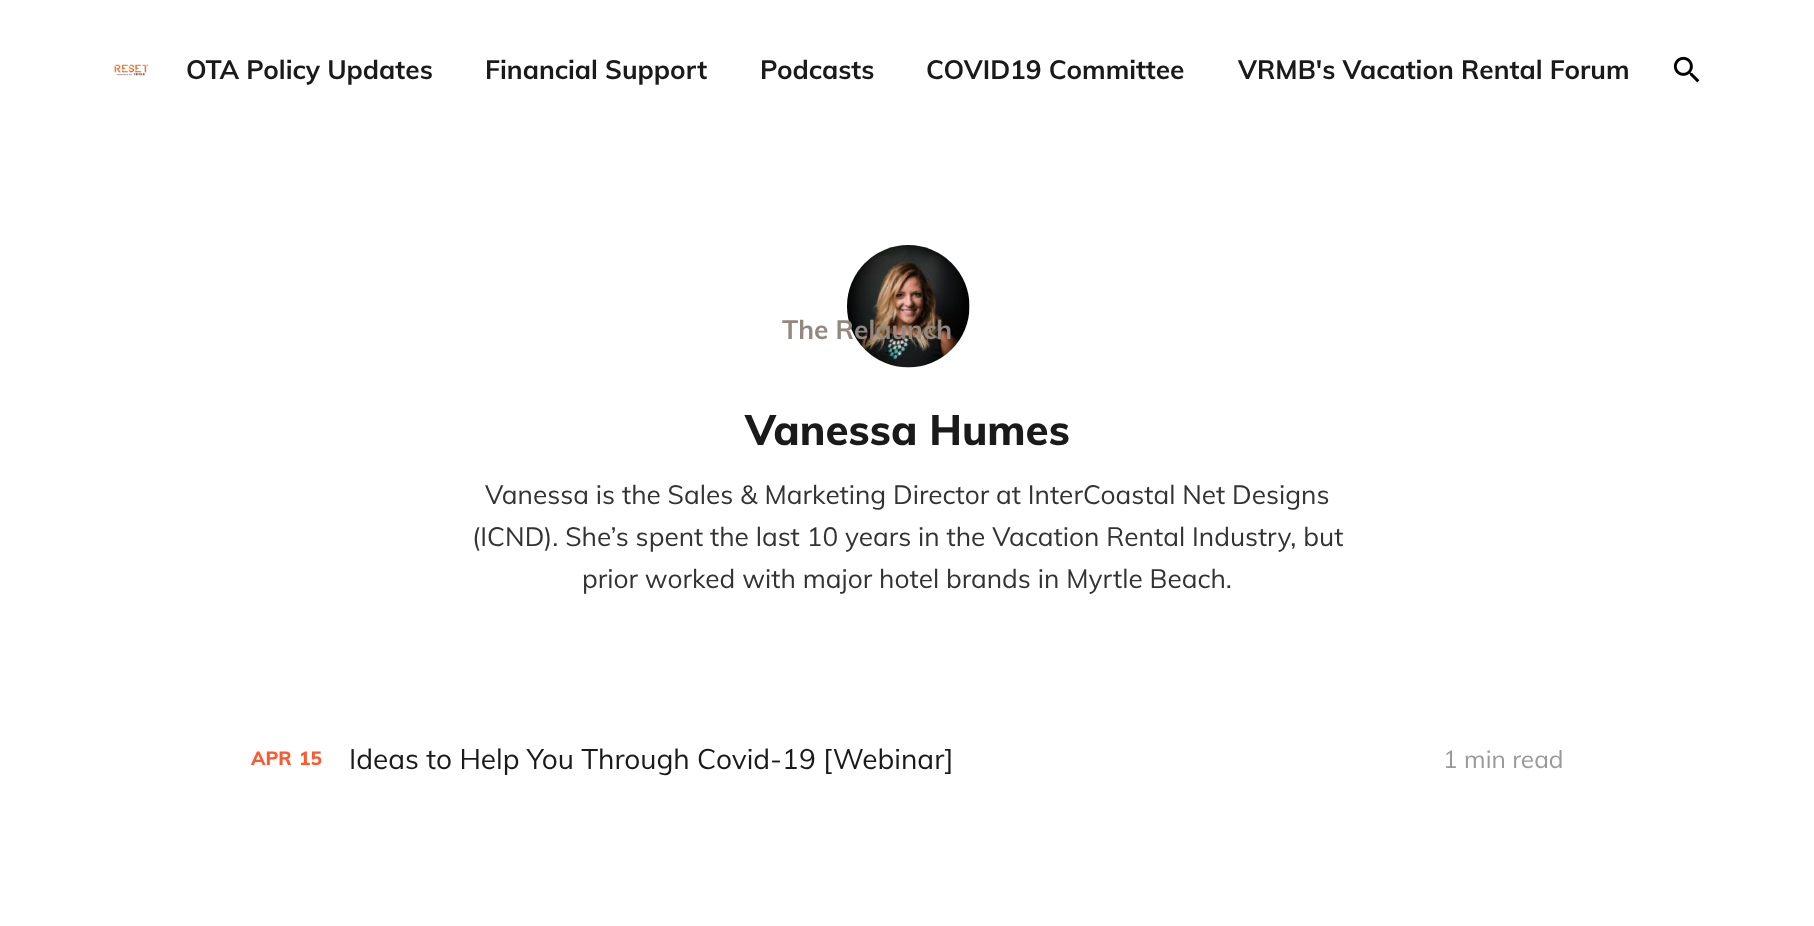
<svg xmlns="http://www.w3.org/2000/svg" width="1814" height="926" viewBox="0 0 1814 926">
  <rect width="100%" height="100%" fill="#fff"/>
  <image x="114" y="64" width="35" height="12" href="img/1.png"/>
  <image x="1673" y="56" width="27" height="27" href="img/2.png"/>
  <circle cx="908.5" cy="306.5" r="61.5" fill="#f6f6f6"/>
  <image x="847" y="245" width="123" height="123" href="img/3.png"/>
  <g font-family="Muli" font-size="26.25" font-weight="bold" fill="#1a1a1a">
    <text x="186" y="79">OTA Policy Updates</text>
    <text x="485" y="79">Financial Support</text>
    <text x="760" y="79">Podcasts</text>
    <text x="926" y="79">COVID19 Committee</text>
    <text x="1238" y="79">VRMB's Vacation Rental Forum</text>
  </g>
  <text x="782" y="339" font-family="Muli" font-size="26.25" font-weight="bold" fill="#938880">The Relaunch</text>
  <text x="745" y="445" font-family="Muli" font-size="42" font-weight="800" fill="#1a1a1a">Vanessa Humes</text>
  <g font-family="Muli" font-size="26.25" fill="#333">
    <text x="485" y="504">Vanessa is the Sales &amp; Marketing Director at InterCoastal Net Designs</text>
    <text x="472" y="546">(ICND). She’s spent the last 10 years in the Vacation Rental Industry, but</text>
    <text x="582" y="588">prior worked with major hotel brands in Myrtle Beach.</text>
  </g>
  <g font-family="Muli" font-size="19" font-weight="800" fill="#ff572f">
    <text x="251" y="765">APR</text>
    <text x="299" y="765">15</text>
  </g>
  <text x="349" y="769" font-family="Muli" font-size="28" fill="#1a1a1a">Ideas to Help You Through Covid-19 [Webinar]</text>
  <text x="1443" y="768" font-family="Muli" font-size="24.5" fill="#999">1 min read</text>
</svg>
